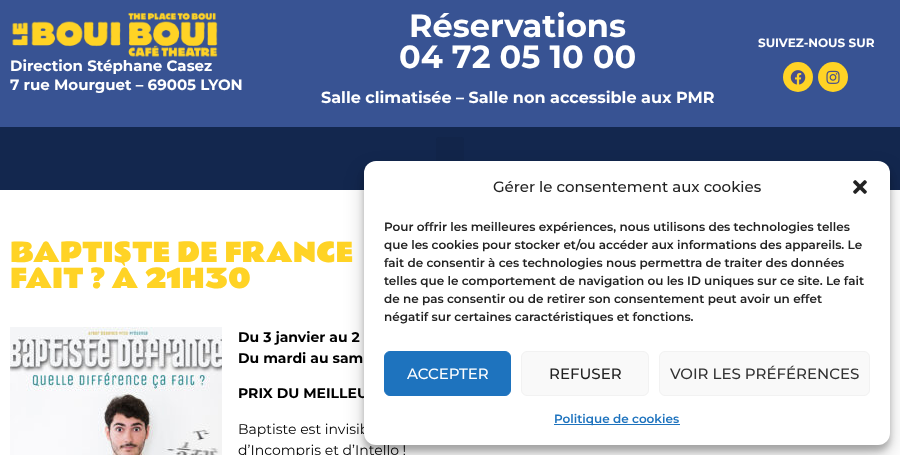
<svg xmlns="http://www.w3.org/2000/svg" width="900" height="455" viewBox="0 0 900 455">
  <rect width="100%" height="100%" fill="#fff"/>
  <path d="M0 0h900v127H0z" fill="#385393"/>
  <circle cx="798" cy="77" r="15" fill="#ffd325"/>
  <image x="790" y="70" width="16" height="15" href="img/1.png"/>
  <circle cx="833" cy="77" r="15" fill="#ffd325"/>
  <image x="826" y="70" width="14" height="14" href="img/2.png"/>
  <image x="12" y="12" width="206" height="45" href="img/3.png"/>
  <path d="M0 127h900v63H0z" fill="#13274e"/>
  <rect x="436" y="137" width="28" height="33" rx="3" fill="#12254a"/>
  <image x="10" y="327" width="212" height="128" href="img/4.png"/>
  <rect x="364" y="167" width="526" height="284" rx="12" fill="#0000003b" filter="blur(3px)"/>
  <rect x="364" y="171" width="526" height="284" rx="12" fill="#00000030" filter="blur(10px)"/>
  <g font-family="Montserrat" font-size="32" font-weight="bold" fill="#fff">
    <text x="409" y="37">Réservations</text>
    <text x="399" y="68">04 72 05 10 00</text>
  </g>
  <text x="321" y="103" font-family="Montserrat" font-size="16" font-weight="bold" fill="#fff">Salle climatisée – Salle non accessible aux PMR</text>
  <text x="758" y="47" font-family="Montserrat" font-size="12" font-weight="bold" fill="#fff">SUIVEZ-NOUS SUR</text>
  <g font-family="Montserrat" font-size="15" font-weight="bold" fill="#fff">
    <text x="10" y="71">Direction Stéphane Casez</text>
    <text x="10" y="90">7 rue Mourguet – 69005 LYON</text>
  </g>
  <g font-family="Rammetto One" font-size="26" fill="#ffd325">
    <text x="10" y="262">BAPTISTE DE FRANCE</text>
    <text x="10" y="288">FAIT ? À 21H30</text>
  </g>
  <g font-family="Montserrat" font-size="14" font-weight="bold" fill="#000">
    <text x="238" y="342">Du 3 janvier au 2</text>
    <text x="238" y="363">Du mardi au sam</text>
    <text x="238" y="398">PRIX DU MEILLEU</text>
  </g>
  <g font-family="Montserrat" font-size="14" fill="#000">
    <text x="238" y="434">Baptiste est invisib</text>
    <text x="238" y="455">d’Incompris et d’Intello !</text>
  </g>
  <rect x="364" y="161" width="526" height="284" rx="12" fill="#fff"/>
  <text x="493" y="192" font-family="Montserrat" font-size="15" font-weight="500" fill="#222">Gérer le consentement aux cookies</text>
  <image x="853" y="180" width="14" height="14" href="img/5.png"/>
  <g font-family="Montserrat" font-size="12" font-weight="600" fill="#222">
    <text x="384" y="231">Pour offrir les meilleures expériences, nous utilisons des technologies telles</text>
    <text x="384" y="249">que les cookies pour stocker et/ou accéder aux informations des appareils. Le</text>
    <text x="384" y="267">fait de consentir à ces technologies nous permettra de traiter des données</text>
    <text x="384" y="285">telles que le comportement de navigation ou les ID uniques sur ce site. Le fait</text>
    <text x="384" y="303">de ne pas consentir ou de retirer son consentement peut avoir un effet</text>
    <text x="384" y="321">négatif sur certaines caractéristiques et fonctions.</text>
  </g>
  <rect x="384.5" y="351.5" width="126" height="44" rx="5.5" fill="#1e73be" stroke="#1e73be"/>
  <text x="407" y="379" font-family="Montserrat" font-size="15" font-weight="500" fill="#fff">ACCEPTER</text>
  <rect x="521.5" y="351.5" width="127" height="44" rx="5.5" fill="#f9f9f9" stroke="#f2f2f2"/>
  <text x="549" y="379" font-family="Montserrat" font-size="15" font-weight="500" fill="#222">REFUSER</text>
  <rect x="659.5" y="351.5" width="210" height="44" rx="5.5" fill="#f9f9f9" stroke="#f2f2f2"/>
  <text x="670" y="379" font-family="Montserrat" font-size="15" font-weight="500" fill="#333">VOIR LES PRÉFÉRENCES</text>
  <path d="M554 424h126v1H554z" fill="#1e73be"/>
  <text x="554" y="423" font-family="Montserrat" font-size="12" font-weight="600" fill="#1e73be">Politique de cookies</text>
</svg>
